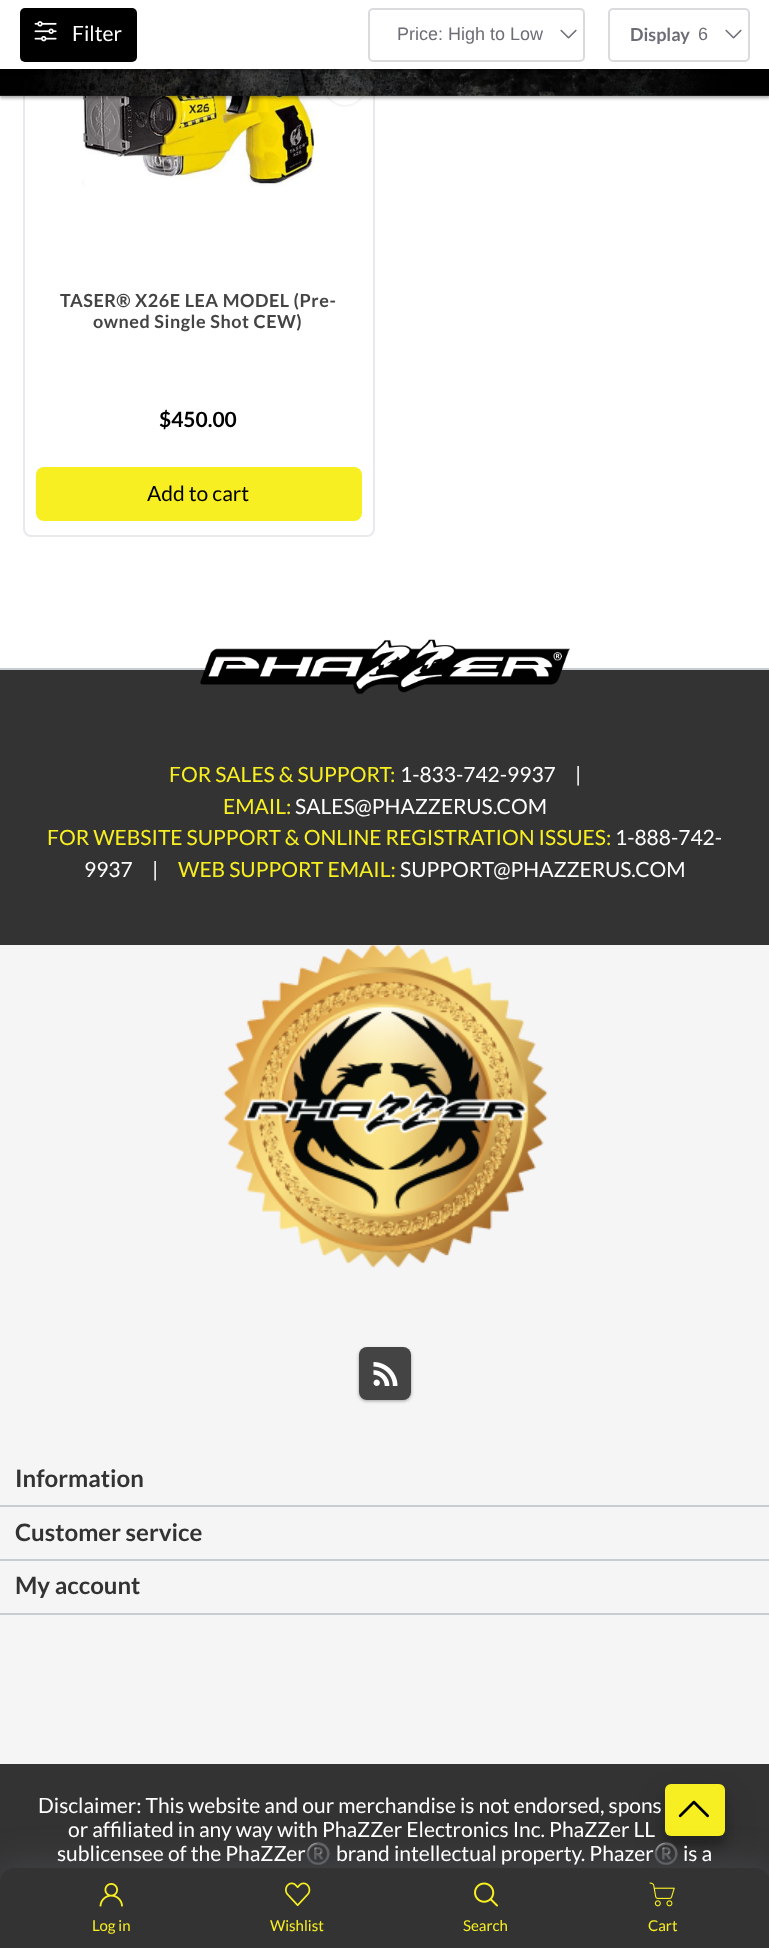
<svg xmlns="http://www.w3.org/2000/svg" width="769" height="1948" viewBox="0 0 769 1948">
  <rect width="100%" height="100%" fill="#fff"/>
  <rect x="24" y="6" width="350" height="530" rx="7" fill="none" stroke="#e9e9ed" stroke-width="2"/>
  <rect x="324" y="63" width="42" height="42" rx="21" fill="#00000026" filter="blur(1.5px)"/>
  <circle cx="345" cy="84" r="21" fill="#fff"/>
  <image x="81" y="95" width="234" height="91" href="img/4.png"/>
  <path d="M0 2h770v96H0z" fill="#0000003d" filter="blur(1.5px)"/>
  <path d="M0 2h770v96H0z" fill="#0000001f" filter="blur(2px)"/>
  <image x="0" y="69" width="769" height="27" href="img/1.png"/>
  <path d="M0 2h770v69H0z" fill="#0000003d" filter="blur(1.5px)"/>
  <path d="M0 2h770v69H0z" fill="#0000001f" filter="blur(2px)"/>
  <path d="M0 0h769v69H0z" fill="#fff"/>
  <rect x="20" y="8" width="117" height="54" rx="5" fill="#000"/>
  <image x="34" y="21" width="23" height="21" href="img/2.png"/>
  <rect x="369" y="9" width="215" height="52" rx="4" fill="none" stroke="#dbdbdd" stroke-width="2"/>
  <image x="560" y="29" width="17" height="10" href="img/3.png"/>
  <rect x="609" y="9" width="140" height="52" rx="4" fill="none" stroke="#dbdbdd" stroke-width="2"/>
  <image x="725" y="29" width="17" height="10" href="img/3.png"/>
  <rect x="36" y="467" width="326" height="54" rx="8" fill="#f8ef22"/>
  <path d="M0 945h769v819H0z" fill="#f5f5f5"/>
  <path d="M0 670h769v275H0z" fill="#333"/>
  <path d="M0 668h769v2H0z" fill="#c6ccd0"/>
  <image x="200" y="639" width="370" height="55" href="img/5.png"/>
  <image x="223" y="945" width="325" height="323" href="img/6.png"/>
  <rect x="359" y="1349" width="52" height="52" rx="8" fill="#0000003d" filter="blur(1.5px)"/>
  <rect x="359" y="1349" width="52" height="52" rx="8" fill="#0000001f" filter="blur(2px)"/>
  <rect x="359" y="1347" width="52" height="53" rx="8" fill="#444"/>
  <image x="373" y="1362" width="25" height="24" href="img/7.png"/>
  <path d="M0 1505h769v2H0z" fill="#c6ccd0"/>
  <path d="M0 1559h769v2H0z" fill="#c6ccd0"/>
  <path d="M0 1613h769v2H0z" fill="#c6ccd0"/>
  <path d="M0 1764h769v119H0z" fill="#333"/>
  <rect x="665" y="1793" width="60" height="52" rx="6" fill="#0000003b" filter="blur(4.5px)"/>
  <rect x="665" y="1799" width="60" height="52" rx="6" fill="#00000030" filter="blur(15px)"/>
  <rect x="665" y="1784" width="60" height="52" rx="6" fill="#f8ef22"/>
  <image x="678" y="1800" width="31" height="18" href="img/8.png"/>
  <rect y="1868" width="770" height="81" rx="15" fill="#6b717b59" filter="blur(19px)"/>
  <path d="M15 1868H755C763.5 1868 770 1874.5 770 1883V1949H0V1883C0 1874.5 6.5 1868 15 1868Z" fill="#333"/>
  <image x="99" y="1883" width="24" height="24" href="img/9.png"/>
  <image x="285" y="1882" width="26" height="25" href="img/10.png"/>
  <image x="474" y="1882" width="24" height="25" href="img/11.png"/>
  <image x="649" y="1882" width="26" height="25" href="img/12.png"/>
  <text x="72" y="41" font-family="Lato" font-size="21" fill="#fff">Filter</text>
  <text x="397" y="40" font-family="Liberation Sans" font-size="18" fill="#6e6d76">Price: High to Low</text>
  <text x="630" y="41" font-family="Lato" font-size="18" font-weight="bold" fill="#6e6d76">Display</text>
  <text x="698" y="40" font-family="Liberation Sans" font-size="18" fill="#6e6d76">6</text>
  <g font-family="Lato" font-size="18" font-weight="bold" letter-spacing="0.55" fill="#444">
    <text x="60" y="307">TASER® X26E LEA MODEL (Pre-</text>
    <text x="93" y="328">owned Single Shot CEW)</text>
  </g>
  <text x="159" y="427" font-family="Lato" font-size="21" font-weight="bold" fill="#000">$450.00</text>
  <text x="147" y="501" font-family="Lato" font-size="21" fill="#000">Add to cart</text>
  <text x="169" y="782" font-family="Lato" font-size="21" fill="#f8ef22">FOR SALES &amp; SUPPORT:</text>
  <g font-family="Lato" font-size="21" fill="#fff">
    <text x="400" y="782">1-833-742-9937</text>
    <text x="575" y="782">|</text>
  </g>
  <text x="223" y="814" font-family="Lato" font-size="21" fill="#f8ef22">EMAIL:</text>
  <text x="295" y="814" font-family="Lato" font-size="21" fill="#fff">SALES@PHAZZERUS.COM</text>
  <text x="47" y="845" font-family="Lato" font-size="21" fill="#f8ef22">FOR WEBSITE SUPPORT &amp; ONLINE REGISTRATION ISSUES:</text>
  <g font-family="Lato" font-size="21" fill="#fff">
    <text x="615" y="845">1-888-742-</text>
    <text x="84" y="877">9937</text>
    <text x="152" y="877">|</text>
  </g>
  <text x="178" y="877" font-family="Lato" font-size="21" fill="#f8ef22">WEB SUPPORT EMAIL:</text>
  <text x="400" y="877" font-family="Lato" font-size="21" fill="#fff">SUPPORT@PHAZZERUS.COM</text>
  <g font-family="Lato" font-size="24" font-weight="bold" fill="#333">
    <text x="15" y="1487">Information</text>
    <text x="15" y="1541">Customer service</text>
    <text x="15" y="1594">My account</text>
  </g>
  <g font-family="Lato" font-size="21" fill="#fff">
    <text x="38" y="1813">Disclaimer: This website and our merchandise is not endorsed, spons</text>
    <text x="68" y="1837">or affiliated in any way with PhaZZer Electronics Inc. PhaZZer LL</text>
    <text x="57" y="1861">sublicensee of the PhaZZer</text>
  </g>
  <text x="305" y="1861" font-family="Noto Color Emoji" font-size="21" fill="#fff">®️</text>
  <text x="336" y="1861" font-family="Lato" font-size="21" fill="#fff">brand intellectual property. Phazer</text>
  <text x="653" y="1861" font-family="Noto Color Emoji" font-size="21" fill="#fff">®️</text>
  <text x="683" y="1861" font-family="Lato" font-size="21" fill="#fff">is a</text>
  <g font-family="Lato" font-size="15" fill="#f8ef22">
    <text x="92" y="1931">Log in</text>
    <text x="270" y="1931">Wishlist</text>
    <text x="463" y="1931">Search</text>
    <text x="648" y="1931">Cart</text>
  </g>
</svg>
